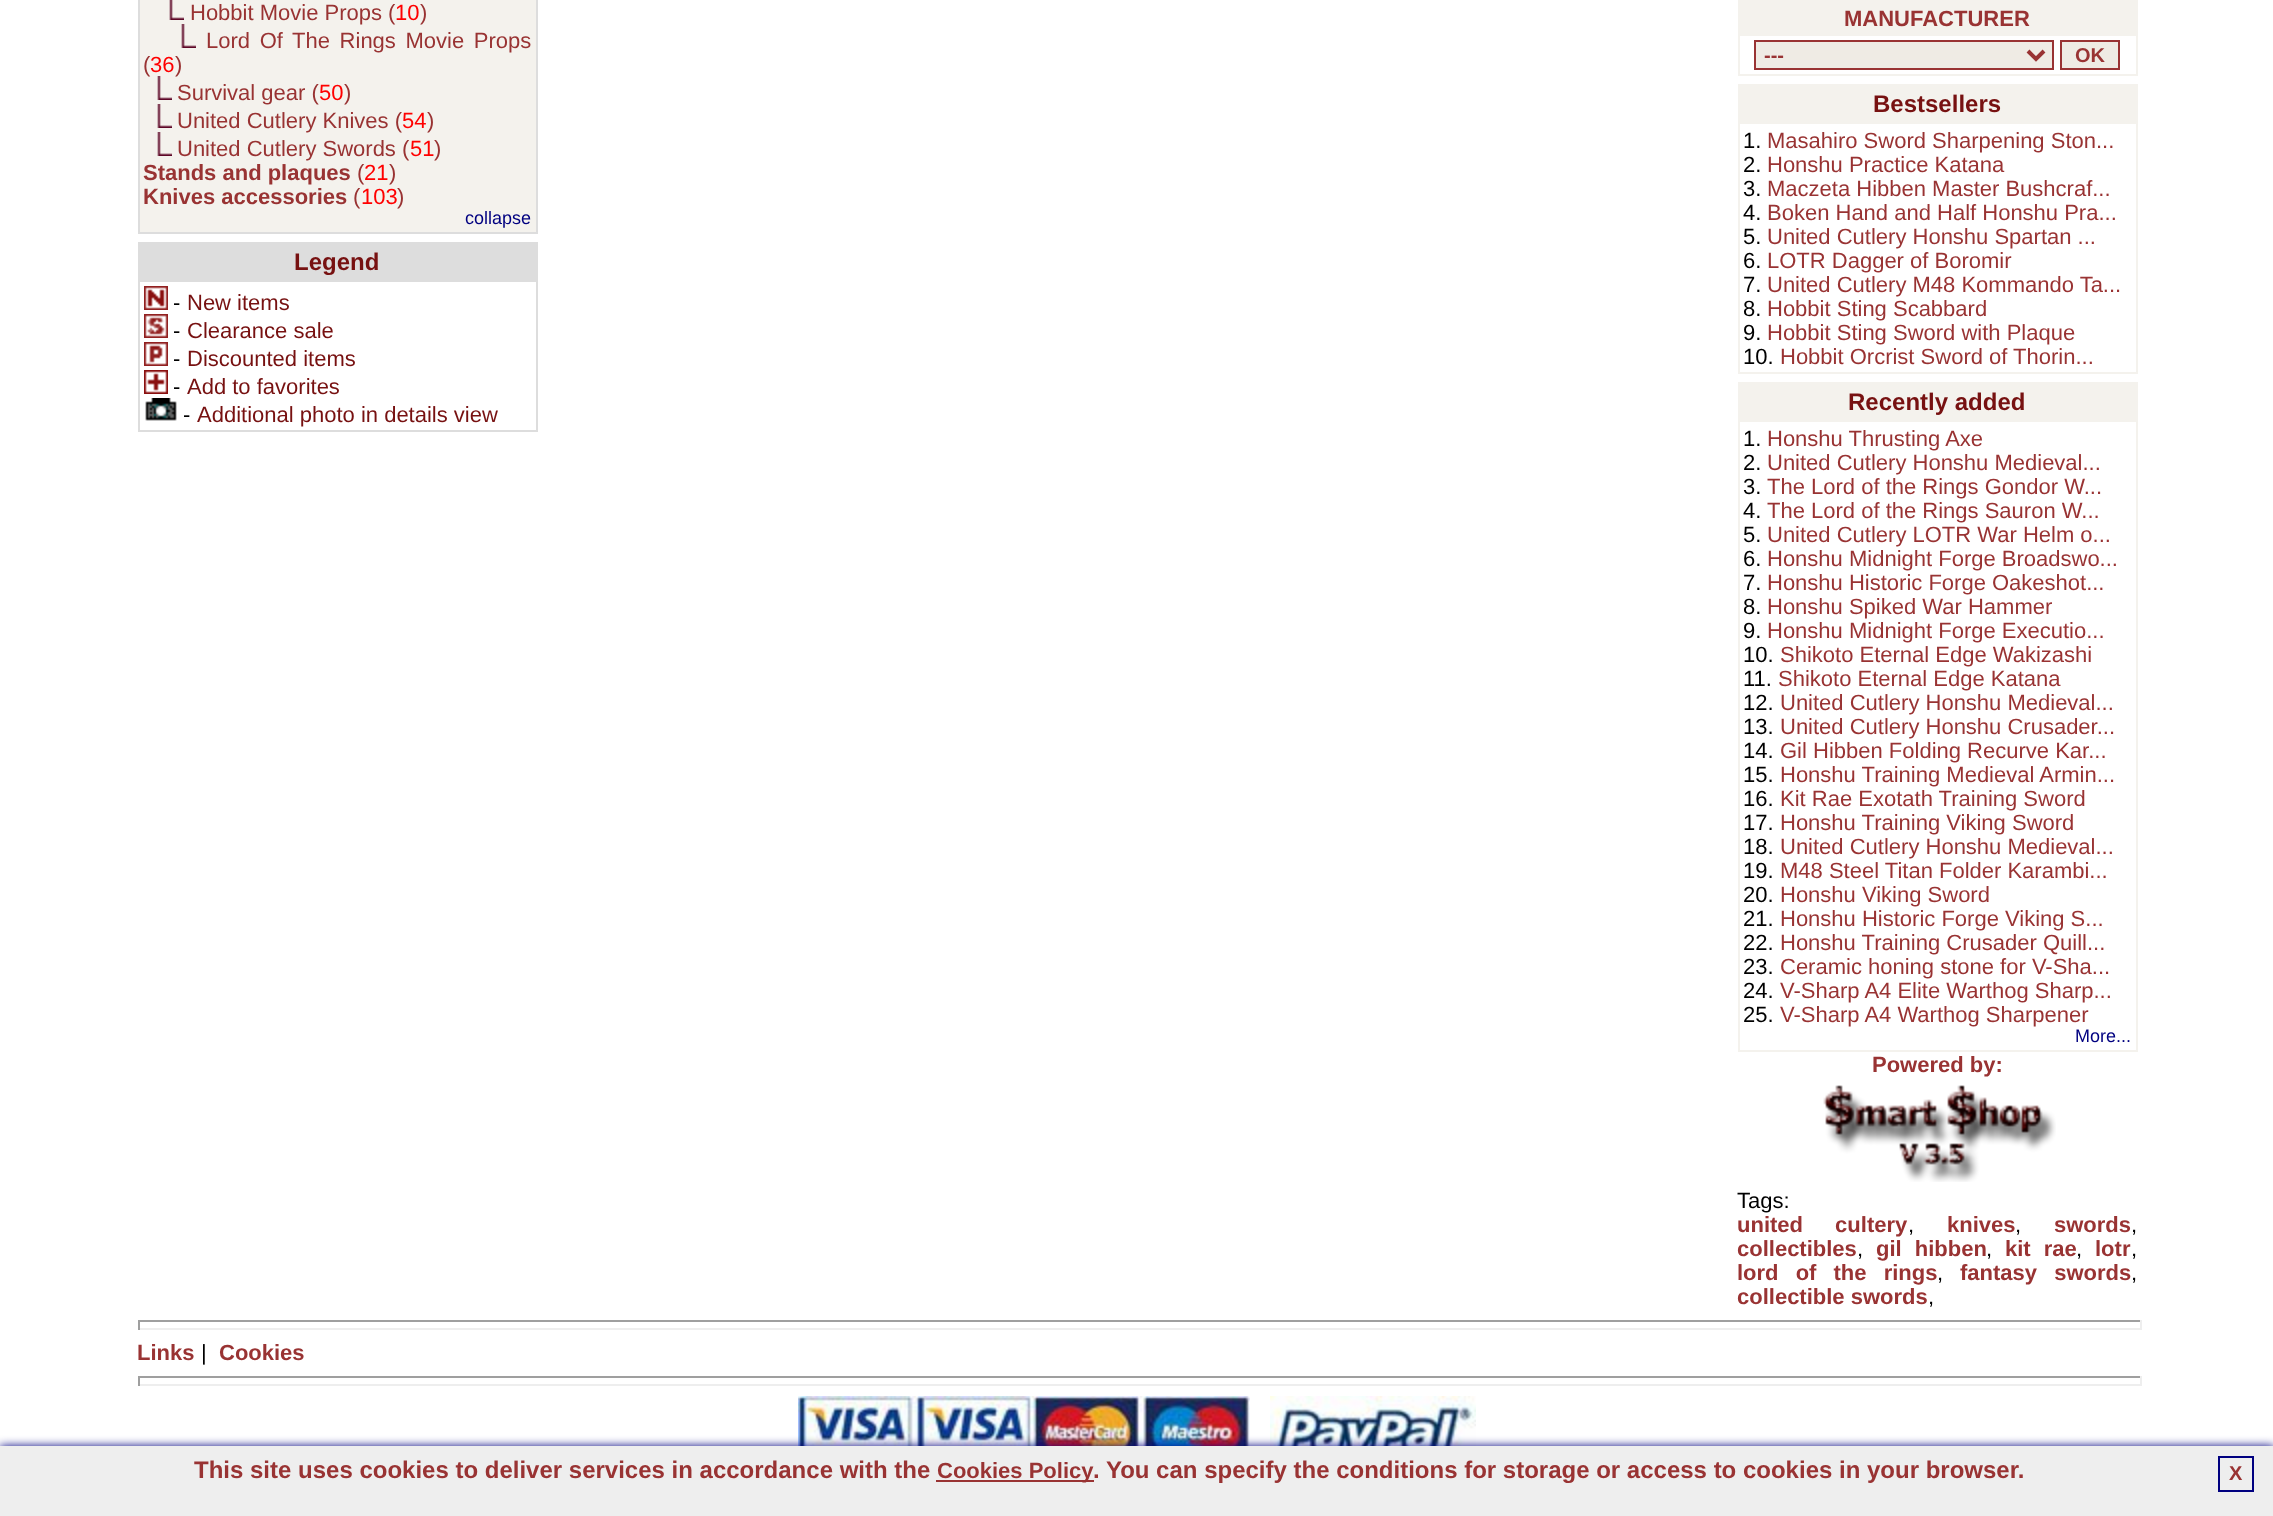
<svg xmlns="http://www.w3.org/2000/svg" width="2273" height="1516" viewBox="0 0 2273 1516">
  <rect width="100%" height="100%" fill="#fff"/>
  <path d="M138 0h400v234H138z" fill="#ddd"/>
  <path d="M140 0h396v232H140z" fill="#f4f2ed"/>
  <image x="169" y="0" width="15" height="20" href="img/1.png"/>
  <image x="157" y="76" width="15" height="24" href="img/2.png"/>
  <image x="157" y="104" width="15" height="24" href="img/2.png"/>
  <image x="157" y="132" width="15" height="24" href="img/2.png"/>
  <path d="M138 242h400v190H138z" fill="#ddd"/>
  <path d="M140 282h396v148H140z" fill="#fff"/>
  <image x="144" y="286" width="24" height="24" href="img/3.png"/>
  <image x="144" y="314" width="24" height="24" href="img/4.png"/>
  <image x="144" y="342" width="24" height="24" href="img/5.png"/>
  <image x="144" y="370" width="24" height="24" href="img/6.png"/>
  <image x="145" y="398" width="32" height="23" href="img/7.png"/>
  <path d="M1738 0h400v76H1738z" fill="#f4f2ed"/>
  <path d="M1740 36h396v38H1740z" fill="#fff"/>
  <path d="M1755 41h298v28H1755z" fill="#efebe4" stroke="#933" stroke-width="2"/>
  <path d="M2028 51L2036 59L2044 51" fill="none" stroke="#933" stroke-width="4"/>
  <path d="M2061 41h58v28H2061z" fill="#efebe4" stroke="#933" stroke-width="2"/>
  <path d="M1738 84h400v290H1738z" fill="#f4f2ed"/>
  <path d="M1740 124h396v248H1740z" fill="#fff"/>
  <path d="M1738 382h400v670H1738z" fill="#f4f2ed"/>
  <path d="M1740 422h396v628H1740z" fill="#fff"/>
  <image x="1823" y="1085" width="233" height="97" href="img/8.png"/>
  <path d="M138 1320h2004v2H138z" fill="#9f9f9f"/>
  <path d="M2140 1320h2v10H2140z" fill="#eee"/>
  <path d="M138 1328h2004v2H138z" fill="#eee"/>
  <path d="M138 1320h2v10H138z" fill="#9f9f9f"/>
  <path d="M138 1376h2004v2H138z" fill="#9f9f9f"/>
  <path d="M2140 1376h2v10H2140z" fill="#eee"/>
  <path d="M138 1384h2004v2H138z" fill="#eee"/>
  <path d="M138 1376h2v10H138z" fill="#9f9f9f"/>
  <image x="798" y="1396" width="452" height="50" href="img/9.png"/>
  <image x="1270" y="1396" width="206" height="50" href="img/10.png"/>
  <path d="M0 1446h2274v70H0z" fill="#000080" filter="blur(5px)"/>
  <path d="M0 1446h2273v70H0z" fill="#eee"/>
  <path d="M936 1480h158v2H936z" fill="#933"/>
  <path d="M2219 1457h34v34H2219z" fill="none" stroke="#000080" stroke-width="2"/>
  <text x="190" y="20" font-family="Liberation Sans" font-size="22" fill="#933">Hobbit Movie Props (</text>
  <text x="395" y="20" font-family="Liberation Sans" font-size="22" fill="#f00">10</text>
  <text x="420" y="20" font-family="Liberation Sans" font-size="22" fill="#933">)</text>
  <image x="181" y="24" width="15" height="24" href="img/2.png"/>
  <g font-family="Liberation Sans" font-size="22" fill="#933">
    <text x="206" y="48" word-spacing="3.5">Lord Of The Rings Movie Props</text>
    <text x="143" y="72">(</text>
  </g>
  <text x="150" y="72" font-family="Liberation Sans" font-size="22" fill="#f00">36</text>
  <g font-family="Liberation Sans" font-size="22" fill="#933">
    <text x="175" y="72">)</text>
    <text x="177" y="100">Survival gear (</text>
  </g>
  <text x="319" y="100" font-family="Liberation Sans" font-size="22" fill="#f00">50</text>
  <g font-family="Liberation Sans" font-size="22" fill="#933">
    <text x="344" y="100">)</text>
    <text x="177" y="128">United Cutlery Knives (</text>
  </g>
  <text x="402" y="128" font-family="Liberation Sans" font-size="22" fill="#f00">54</text>
  <g font-family="Liberation Sans" font-size="22" fill="#933">
    <text x="427" y="128">)</text>
    <text x="177" y="156">United Cutlery Swords (</text>
  </g>
  <text x="410" y="156" font-family="Liberation Sans" font-size="22" fill="#f00">51</text>
  <text x="434" y="156" font-family="Liberation Sans" font-size="22" fill="#933">)</text>
  <text x="143" y="180" font-family="Liberation Sans" font-size="22" font-weight="bold" fill="#933">Stands and plaques</text>
  <text x="357" y="180" font-family="Liberation Sans" font-size="22" fill="#933">(</text>
  <text x="364" y="180" font-family="Liberation Sans" font-size="22" fill="#f00">21</text>
  <text x="389" y="180" font-family="Liberation Sans" font-size="22" fill="#933">)</text>
  <text x="143" y="204" font-family="Liberation Sans" font-size="22" font-weight="bold" fill="#933">Knives accessories</text>
  <text x="353" y="204" font-family="Liberation Sans" font-size="22" fill="#933">(</text>
  <text x="361" y="204" font-family="Liberation Sans" font-size="22" fill="#f00">103</text>
  <text x="397" y="204" font-family="Liberation Sans" font-size="22" fill="#933">)</text>
  <text x="465" y="224" font-family="Liberation Sans" font-size="18" fill="#000080">collapse</text>
  <text x="294" y="270" font-family="Liberation Sans" font-size="24" font-weight="bold" fill="#711">Legend</text>
  <text x="173" y="310" font-family="Liberation Sans" font-size="22" fill="#000">-</text>
  <text x="187" y="310" font-family="Liberation Sans" font-size="22" fill="#711">New items</text>
  <text x="173" y="338" font-family="Liberation Sans" font-size="22" fill="#000">-</text>
  <text x="187" y="338" font-family="Liberation Sans" font-size="22" fill="#711">Clearance sale</text>
  <text x="173" y="366" font-family="Liberation Sans" font-size="22" fill="#000">-</text>
  <text x="187" y="366" font-family="Liberation Sans" font-size="22" fill="#711">Discounted items</text>
  <text x="173" y="394" font-family="Liberation Sans" font-size="22" fill="#000">-</text>
  <text x="187" y="394" font-family="Liberation Sans" font-size="22" fill="#711">Add to favorites</text>
  <text x="183" y="422" font-family="Liberation Sans" font-size="22" fill="#000">-</text>
  <text x="197" y="422" font-family="Liberation Sans" font-size="22" fill="#711">Additional photo in details view</text>
  <text x="1844" y="26" font-family="Liberation Sans" font-size="22" font-weight="bold" fill="#933">MANUFACTURER</text>
  <g font-family="Liberation Sans" font-size="20" font-weight="bold" fill="#933">
    <text x="1764" y="62">---</text>
    <text x="2075" y="62">OK</text>
  </g>
  <text x="1873" y="112" font-family="Liberation Sans" font-size="24" font-weight="bold" fill="#711">Bestsellers</text>
  <text x="1743" y="148" font-family="Liberation Sans" font-size="22" fill="#000">1.</text>
  <text x="1767" y="148" font-family="Liberation Sans" font-size="22" fill="#933">Masahiro Sword Sharpening Ston...</text>
  <text x="1743" y="172" font-family="Liberation Sans" font-size="22" fill="#000">2.</text>
  <text x="1767" y="172" font-family="Liberation Sans" font-size="22" fill="#933">Honshu Practice Katana</text>
  <text x="1743" y="196" font-family="Liberation Sans" font-size="22" fill="#000">3.</text>
  <text x="1767" y="196" font-family="Liberation Sans" font-size="22" fill="#933">Maczeta Hibben Master Bushcraf...</text>
  <text x="1743" y="220" font-family="Liberation Sans" font-size="22" fill="#000">4.</text>
  <text x="1767" y="220" font-family="Liberation Sans" font-size="22" fill="#933">Boken Hand and Half Honshu Pra...</text>
  <text x="1743" y="244" font-family="Liberation Sans" font-size="22" fill="#000">5.</text>
  <text x="1767" y="244" font-family="Liberation Sans" font-size="22" fill="#933">United Cutlery Honshu Spartan ...</text>
  <text x="1743" y="268" font-family="Liberation Sans" font-size="22" fill="#000">6.</text>
  <text x="1767" y="268" font-family="Liberation Sans" font-size="22" fill="#933">LOTR Dagger of Boromir</text>
  <text x="1743" y="292" font-family="Liberation Sans" font-size="22" fill="#000">7.</text>
  <text x="1767" y="292" font-family="Liberation Sans" font-size="22" fill="#933">United Cutlery M48 Kommando Ta...</text>
  <text x="1743" y="316" font-family="Liberation Sans" font-size="22" fill="#000">8.</text>
  <text x="1767" y="316" font-family="Liberation Sans" font-size="22" fill="#933">Hobbit Sting Scabbard</text>
  <text x="1743" y="340" font-family="Liberation Sans" font-size="22" fill="#000">9.</text>
  <text x="1767" y="340" font-family="Liberation Sans" font-size="22" fill="#933">Hobbit Sting Sword with Plaque</text>
  <text x="1743" y="364" font-family="Liberation Sans" font-size="22" fill="#000">10.</text>
  <text x="1780" y="364" font-family="Liberation Sans" font-size="22" fill="#933">Hobbit Orcrist Sword of Thorin...</text>
  <text x="1848" y="410" font-family="Liberation Sans" font-size="24" font-weight="bold" fill="#711">Recently added</text>
  <text x="1743" y="446" font-family="Liberation Sans" font-size="22" fill="#000">1.</text>
  <text x="1767" y="446" font-family="Liberation Sans" font-size="22" fill="#933">Honshu Thrusting Axe</text>
  <text x="1743" y="470" font-family="Liberation Sans" font-size="22" fill="#000">2.</text>
  <text x="1767" y="470" font-family="Liberation Sans" font-size="22" fill="#933">United Cutlery Honshu Medieval...</text>
  <text x="1743" y="494" font-family="Liberation Sans" font-size="22" fill="#000">3.</text>
  <text x="1767" y="494" font-family="Liberation Sans" font-size="22" fill="#933">The Lord of the Rings Gondor W...</text>
  <text x="1743" y="518" font-family="Liberation Sans" font-size="22" fill="#000">4.</text>
  <text x="1767" y="518" font-family="Liberation Sans" font-size="22" fill="#933">The Lord of the Rings Sauron W...</text>
  <text x="1743" y="542" font-family="Liberation Sans" font-size="22" fill="#000">5.</text>
  <text x="1767" y="542" font-family="Liberation Sans" font-size="22" fill="#933">United Cutlery LOTR War Helm o...</text>
  <text x="1743" y="566" font-family="Liberation Sans" font-size="22" fill="#000">6.</text>
  <text x="1767" y="566" font-family="Liberation Sans" font-size="22" fill="#933">Honshu Midnight Forge Broadswo...</text>
  <text x="1743" y="590" font-family="Liberation Sans" font-size="22" fill="#000">7.</text>
  <text x="1767" y="590" font-family="Liberation Sans" font-size="22" fill="#933">Honshu Historic Forge Oakeshot...</text>
  <text x="1743" y="614" font-family="Liberation Sans" font-size="22" fill="#000">8.</text>
  <text x="1767" y="614" font-family="Liberation Sans" font-size="22" fill="#933">Honshu Spiked War Hammer</text>
  <text x="1743" y="638" font-family="Liberation Sans" font-size="22" fill="#000">9.</text>
  <text x="1767" y="638" font-family="Liberation Sans" font-size="22" fill="#933">Honshu Midnight Forge Executio...</text>
  <text x="1743" y="662" font-family="Liberation Sans" font-size="22" fill="#000">10.</text>
  <text x="1780" y="662" font-family="Liberation Sans" font-size="22" fill="#933">Shikoto Eternal Edge Wakizashi</text>
  <text x="1743" y="686" font-family="Liberation Sans" font-size="22" fill="#000">11.</text>
  <text x="1778" y="686" font-family="Liberation Sans" font-size="22" fill="#933">Shikoto Eternal Edge Katana</text>
  <text x="1743" y="710" font-family="Liberation Sans" font-size="22" fill="#000">12.</text>
  <text x="1780" y="710" font-family="Liberation Sans" font-size="22" fill="#933">United Cutlery Honshu Medieval...</text>
  <text x="1743" y="734" font-family="Liberation Sans" font-size="22" fill="#000">13.</text>
  <text x="1780" y="734" font-family="Liberation Sans" font-size="22" fill="#933">United Cutlery Honshu Crusader...</text>
  <text x="1743" y="758" font-family="Liberation Sans" font-size="22" fill="#000">14.</text>
  <text x="1780" y="758" font-family="Liberation Sans" font-size="22" fill="#933">Gil Hibben Folding Recurve Kar...</text>
  <text x="1743" y="782" font-family="Liberation Sans" font-size="22" fill="#000">15.</text>
  <text x="1780" y="782" font-family="Liberation Sans" font-size="22" fill="#933">Honshu Training Medieval Armin...</text>
  <text x="1743" y="806" font-family="Liberation Sans" font-size="22" fill="#000">16.</text>
  <text x="1780" y="806" font-family="Liberation Sans" font-size="22" fill="#933">Kit Rae Exotath Training Sword</text>
  <text x="1743" y="830" font-family="Liberation Sans" font-size="22" fill="#000">17.</text>
  <text x="1780" y="830" font-family="Liberation Sans" font-size="22" fill="#933">Honshu Training Viking Sword</text>
  <text x="1743" y="854" font-family="Liberation Sans" font-size="22" fill="#000">18.</text>
  <text x="1780" y="854" font-family="Liberation Sans" font-size="22" fill="#933">United Cutlery Honshu Medieval...</text>
  <text x="1743" y="878" font-family="Liberation Sans" font-size="22" fill="#000">19.</text>
  <text x="1780" y="878" font-family="Liberation Sans" font-size="22" fill="#933">M48 Steel Titan Folder Karambi...</text>
  <text x="1743" y="902" font-family="Liberation Sans" font-size="22" fill="#000">20.</text>
  <text x="1780" y="902" font-family="Liberation Sans" font-size="22" fill="#933">Honshu Viking Sword</text>
  <text x="1743" y="926" font-family="Liberation Sans" font-size="22" fill="#000">21.</text>
  <text x="1780" y="926" font-family="Liberation Sans" font-size="22" fill="#933">Honshu Historic Forge Viking S...</text>
  <text x="1743" y="950" font-family="Liberation Sans" font-size="22" fill="#000">22.</text>
  <text x="1780" y="950" font-family="Liberation Sans" font-size="22" fill="#933">Honshu Training Crusader Quill...</text>
  <text x="1743" y="974" font-family="Liberation Sans" font-size="22" fill="#000">23.</text>
  <text x="1780" y="974" font-family="Liberation Sans" font-size="22" fill="#933">Ceramic honing stone for V-Sha...</text>
  <text x="1743" y="998" font-family="Liberation Sans" font-size="22" fill="#000">24.</text>
  <text x="1780" y="998" font-family="Liberation Sans" font-size="22" fill="#933">V-Sharp A4 Elite Warthog Sharp...</text>
  <text x="1743" y="1022" font-family="Liberation Sans" font-size="22" fill="#000">25.</text>
  <text x="1780" y="1022" font-family="Liberation Sans" font-size="22" fill="#933">V-Sharp A4 Warthog Sharpener</text>
  <text x="2075" y="1042" font-family="Liberation Sans" font-size="18" fill="#000080">More...</text>
  <text x="1872" y="1072" font-family="Liberation Sans" font-size="22" font-weight="bold" fill="#933">Powered by:</text>
  <text x="1737" y="1208" font-family="Liberation Sans" font-size="22" fill="#000">Tags:</text>
  <text x="1737" y="1232" word-spacing="26" font-family="Liberation Sans" font-size="22" font-weight="bold" fill="#933">united cultery</text>
  <text x="1908" y="1232" font-family="Liberation Sans" font-size="22" fill="#000">,</text>
  <text x="1947" y="1232" font-family="Liberation Sans" font-size="22" font-weight="bold" fill="#933">knives</text>
  <text x="2015" y="1232" font-family="Liberation Sans" font-size="22" fill="#000">,</text>
  <text x="2054" y="1232" font-family="Liberation Sans" font-size="22" font-weight="bold" fill="#933">swords</text>
  <text x="2131" y="1232" font-family="Liberation Sans" font-size="22" fill="#000">,</text>
  <text x="1737" y="1256" font-family="Liberation Sans" font-size="22" font-weight="bold" fill="#933">collectibles</text>
  <text x="1857" y="1256" font-family="Liberation Sans" font-size="22" fill="#000">,</text>
  <text x="1876" y="1256" word-spacing="7" font-family="Liberation Sans" font-size="22" font-weight="bold" fill="#933">gil hibben</text>
  <text x="1986" y="1256" font-family="Liberation Sans" font-size="22" fill="#000">,</text>
  <text x="2005" y="1256" word-spacing="7" font-family="Liberation Sans" font-size="22" font-weight="bold" fill="#933">kit rae</text>
  <text x="2076" y="1256" font-family="Liberation Sans" font-size="22" fill="#000">,</text>
  <text x="2095" y="1256" font-family="Liberation Sans" font-size="22" font-weight="bold" fill="#933">lotr</text>
  <text x="2131" y="1256" font-family="Liberation Sans" font-size="22" fill="#000">,</text>
  <text x="1737" y="1280" word-spacing="11" font-family="Liberation Sans" font-size="22" font-weight="bold" fill="#933">lord of the rings</text>
  <text x="1937" y="1280" font-family="Liberation Sans" font-size="22" fill="#000">,</text>
  <text x="1960" y="1280" word-spacing="11" font-family="Liberation Sans" font-size="22" font-weight="bold" fill="#933">fantasy swords</text>
  <text x="2131" y="1280" font-family="Liberation Sans" font-size="22" fill="#000">,</text>
  <text x="1737" y="1304" font-family="Liberation Sans" font-size="22" font-weight="bold" fill="#933">collectible swords</text>
  <text x="1928" y="1304" font-family="Liberation Sans" font-size="22" fill="#000">,</text>
  <text x="137" y="1360" font-family="Liberation Sans" font-size="22" font-weight="bold" fill="#933">Links</text>
  <text x="201" y="1360" font-family="Liberation Sans" font-size="22" fill="#000">|</text>
  <text x="219" y="1360" font-family="Liberation Sans" font-size="22" font-weight="bold" fill="#933">Cookies</text>
  <text x="194" y="1478" font-family="Liberation Sans" font-size="24" font-weight="bold" fill="#933">This site uses cookies to deliver services in accordance with the</text>
  <text x="937" y="1478" font-family="Liberation Sans" font-size="22" font-weight="bold" fill="#933">Cookies Policy</text>
  <text x="1093" y="1478" font-family="Liberation Sans" font-size="24" font-weight="bold" fill="#933">. You can specify the conditions for storage or access to cookies in your browser.</text>
  <text x="2229" y="1480" font-family="Liberation Sans" font-size="20" font-weight="bold" fill="#933">X</text>
</svg>
